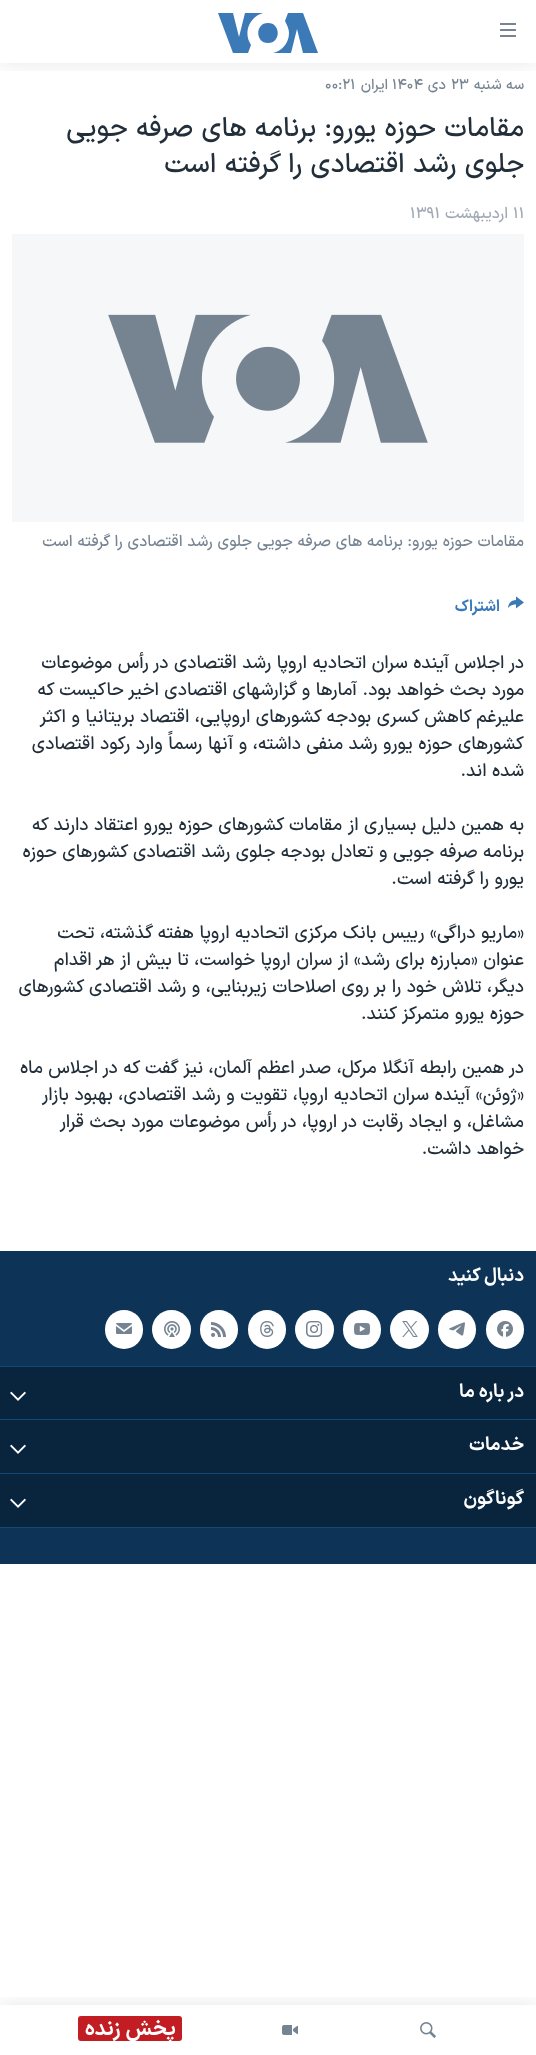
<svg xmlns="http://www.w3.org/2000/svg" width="536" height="2055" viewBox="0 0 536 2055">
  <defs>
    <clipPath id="clip1"><path d="M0 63h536v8H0z"/></clipPath>
    <clipPath id="clip2"><path d="M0 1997h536v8H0z"/></clipPath>
  </defs>
  <rect width="100%" height="100%" fill="#fff"/>
  <path d="M12 234h512v288H12z" fill="#f6f7f8"/>
  <image x="108" y="314" width="320" height="129" href="img/1.png"/>
  <image x="508" y="596" width="16" height="13" href="img/2.png"/>
  <path d="M0 1251h536v313H0z" fill="#0d3456"/>
  <path d="M0 1527h536v1H0z" fill="#134976"/>
  <rect x="486" y="1310" width="38" height="39" rx="19" fill="#fff"/>
  <image x="497" y="1321" width="16" height="16" href="img/3.png"/>
  <rect x="438" y="1310" width="38" height="39" rx="19" fill="#fff"/>
  <image x="449" y="1322" width="16" height="14" href="img/4.png"/>
  <circle cx="409.5" cy="1329.5" r="19.5" fill="#fff"/>
  <image x="402" y="1321" width="16" height="16" href="img/5.png"/>
  <rect x="343" y="1310" width="38" height="39" rx="19" fill="#fff"/>
  <image x="354" y="1323" width="16" height="12" href="img/6.png"/>
  <circle cx="314.5" cy="1329.5" r="19.5" fill="#fff"/>
  <image x="306" y="1321" width="17" height="16" href="img/7.png"/>
  <rect x="248" y="1310" width="38" height="39" rx="19" fill="#fff"/>
  <image x="260" y="1321" width="14" height="16" href="img/8.png"/>
  <rect x="200" y="1310" width="38" height="39" rx="19" fill="#fff"/>
  <image x="211" y="1322" width="15" height="15" href="img/9.png"/>
  <circle cx="171.5" cy="1329.5" r="19.5" fill="#fff"/>
  <image x="164" y="1321" width="16" height="16" href="img/10.png"/>
  <rect x="105" y="1310" width="38" height="39" rx="19" fill="#fff"/>
  <image x="116" y="1323" width="16" height="11" href="img/11.png"/>
  <path d="M0 1366h536v1H0z" fill="#134976"/>
  <path d="M0 1367h536v52H0z" fill="#09243d"/>
  <image x="10" y="1391" width="16" height="10" href="img/12.png"/>
  <path d="M0 1419h536v1H0z" fill="#134976"/>
  <path d="M0 1420h536v53H0z" fill="#09243d"/>
  <image x="10" y="1444" width="16" height="10" href="img/12.png"/>
  <path d="M0 1473h536v1H0z" fill="#134976"/>
  <path d="M0 1474h536v53H0z" fill="#09243d"/>
  <image x="10" y="1498" width="16" height="10" href="img/12.png"/>
  <g clip-path="url(#clip1)">
    <path d="M0 0h536v63H0z" fill="#0000001a" filter="blur(10px)"/>
  </g>
  <image x="500" y="23" width="16" height="14" href="img/13.png"/>
  <path d="M251 45L248 53H233L218 13H233L239 37L245 13H263C249 17 243 33 251 45ZM268 23C255 23 255 43 268 43C281 43 281 23 268 23ZM289 33C289 43 282 51 273 53H291L297 29L303 53H318L303 13H288L285 21C287 25 289 29 289 33Z" fill="#3b79b7"/>
  <g clip-path="url(#clip2)">
    <path d="M0 2005h536v50H0z" fill="#0000001a" filter="blur(10px)"/>
  </g>
  <image x="420" y="2022" width="16" height="16" href="img/14.png"/>
  <image x="282" y="2025" width="16" height="10" href="img/15.png"/>
  <rect x="78" y="2016" width="104" height="25" rx="3" fill="#c11d22"/>
  <text x="524" y="89" font-family="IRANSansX" font-size="14.5" font-weight="500" direction="rtl" fill="#768492">سه شنبه</text>
  <text x="451" y="89" font-family="IRANSansX" font-size="14.5" font-weight="500" fill="#768492">۲۳</text>
  <text x="446" y="89" font-family="IRANSansX" font-size="14.5" font-weight="500" direction="rtl" fill="#768492">دی</text>
  <text x="392" y="89" font-family="IRANSansX" font-size="14.5" font-weight="500" fill="#768492">۱۴۰۴</text>
  <text x="388" y="89" font-family="IRANSansX" font-size="14.5" font-weight="500" direction="rtl" fill="#768492">ایران</text>
  <text x="325" y="89" font-family="IRANSansX" font-size="14.5" font-weight="500" fill="#768492">۰۰:۲۱</text>
  <g font-family="IRANSansX" font-size="27" font-weight="500" direction="rtl" fill="#222f3a">
    <text x="524" y="136">مقامات حوزه يورو: برنامه های صرفه جويی</text>
    <text x="524" y="172">جلوی رشد اقتصادی را گرفته است</text>
  </g>
  <text x="513" y="218" font-family="IRANSansX" font-size="15.75" font-weight="500" fill="#a1aab4">۱۱</text>
  <text x="508" y="218" font-family="IRANSansX" font-size="15.75" font-weight="500" direction="rtl" fill="#a1aab4">اردیبهشت</text>
  <text x="410" y="218" font-family="IRANSansX" font-size="15.75" font-weight="500" fill="#a1aab4">۱۳۹۱</text>
  <text x="524" y="546" font-family="IRANSansX" font-size="15.75" font-weight="500" direction="rtl" fill="#768492">مقامات حوزه يورو: برنامه های صرفه جويی جلوی رشد اقتصادی را گرفته است</text>
  <text x="500" y="611" font-family="IRANSansX" font-size="15.75" font-weight="bold" direction="rtl" fill="#3a79b7">اشتراک</text>
  <g font-family="IRANSansX" font-size="18" font-weight="500" direction="rtl" fill="#222f3a">
    <text x="524" y="668">در اجلاس آينده سران اتحاديه اروپا رشد اقتصادی در رأس موضوعات</text>
    <text x="524" y="695">مورد بحث خواهد بود. آمارها و گزارشهای اقتصادی اخير حاکيست که</text>
    <text x="524" y="722">عليرغم کاهش کسری بودجه کشورهای اروپايی، اقتصاد بريتانيا و اکثر</text>
    <text x="524" y="749">کشورهای حوزه يورو رشد منفی داشته، و آنها رسماً وارد رکود اقتصادی</text>
    <text x="524" y="776">شده اند.</text>
    <text x="524" y="830">به همين دليل بسياری از مقامات کشورهای حوزه يورو اعتقاد دارند که</text>
    <text x="524" y="857">برنامه صرفه جويی و تعادل بودجه جلوی رشد اقتصادی کشورهای حوزه</text>
    <text x="524" y="884">يورو را گرفته است.</text>
    <text x="524" y="938">«ماريو دراگی» رييس بانک مرکزی اتحاديه اروپا هفته گذشته، تحت</text>
    <text x="524" y="965">عنوان «مبارزه برای رشد» از سران اروپا خواست، تا بيش از هر اقدام</text>
    <text x="524" y="992">ديگر، تلاش خود را بر روی اصلاحات زيربنايی، و رشد اقتصادی کشورهای</text>
    <text x="524" y="1019">حوزه يورو متمرکز کنند.</text>
    <text x="524" y="1073">در همين رابطه آنگلا مرکل، صدر اعظم آلمان، نيز گفت که در اجلاس ماه</text>
    <text x="524" y="1100">«ژوئن» آينده سران اتحاديه اروپا، تقويت و رشد اقتصادی، بهبود بازار</text>
    <text x="524" y="1127">مشاغل، و ايجاد رقابت در اروپا، در رأس موضوعات مورد بحث قرار</text>
    <text x="524" y="1154">خواهد داشت.</text>
  </g>
  <g font-family="IRANSansX" font-size="18.5" font-weight="bold" direction="rtl" fill="#fff">
    <text x="524" y="1281">دنبال کنید</text>
    <text x="524" y="1397">در باره ما</text>
    <text x="524" y="1450">خدمات</text>
    <text x="524" y="1504">گوناگون</text>
  </g>
  <text x="176" y="2035" font-family="IRANSansX" font-size="21" font-weight="bold" direction="rtl" fill="#fff">پخش زنده</text>
</svg>
